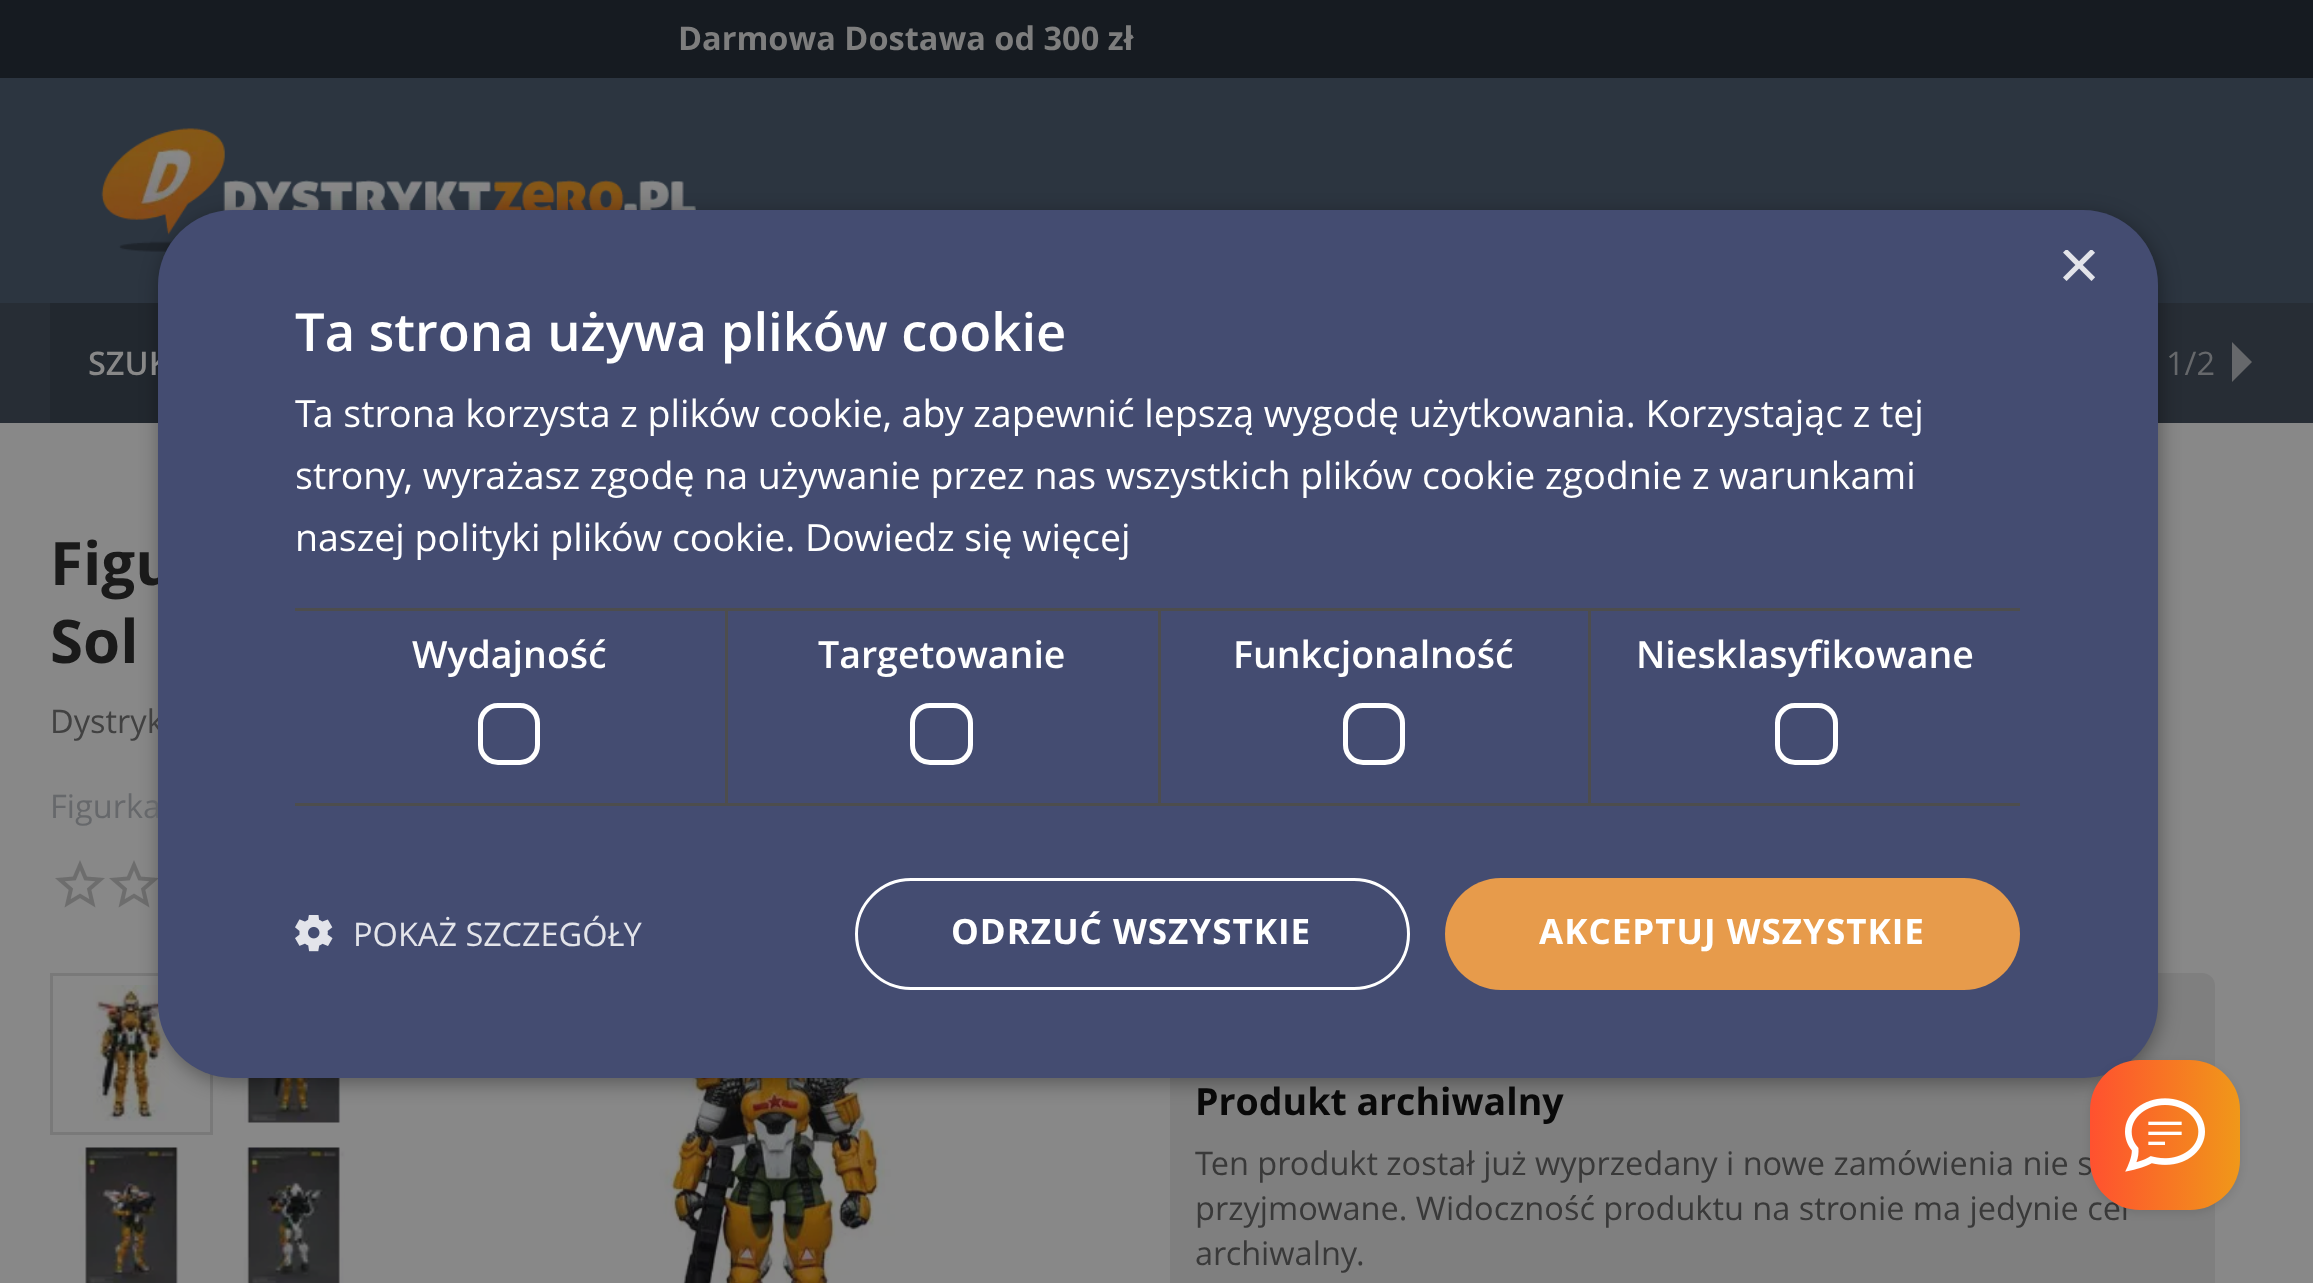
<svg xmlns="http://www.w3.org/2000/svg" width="2313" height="1283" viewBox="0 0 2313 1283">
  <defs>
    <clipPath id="clip1"><path d="M2058 250h37v38H2058z"/></clipPath>
    <linearGradient id="g1" gradientUnits="userSpaceOnUse" x1="2090" y1="1135" x2="2240" y2="1135"><stop offset="0" stop-color="#ff512f"/><stop offset="1" stop-color="#f09819"/></linearGradient>
  </defs>
  <rect width="100%" height="100%" fill="#888"/>
  <path d="M0 78h2313v225H0z" fill="#2c3540"/>
  <path d="M0 0h2313v78H0z" fill="#161b21"/>
  <image x="101" y="128" width="595" height="124" href="img/1.png"/>
  <path d="M0 303h2313v120H0z" fill="#272d35"/>
  <path d="M50 303h108v120H50z" fill="#22282f"/>
  <path d="M2232 382V342L2252 362Z" fill="#66686b"/>
  <image x="55" y="860" width="103" height="48" href="img/2.png"/>
  <path d="M51.5 974.5h160v159H51.5z" fill="none" stroke="#797979" stroke-width="3"/>
  <image x="93" y="985" width="76" height="136" href="img/3.png"/>
  <image x="240" y="1078" width="101" height="45" href="img/4.png"/>
  <image x="78" y="1147" width="101" height="136" href="img/5.png"/>
  <image x="242" y="1147" width="103" height="136" href="img/6.png"/>
  <image x="654" y="1078" width="246" height="205" href="img/7.png"/>
  <rect x="1170" y="973" width="1045" height="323" rx="13" fill="#7f7f7f"/>
  <rect x="160" y="215" width="2000" height="868" rx="75" fill="#00000059" filter="blur(10px)"/>
  <text x="678" y="50" font-family="Open Sans" font-size="32.5" font-weight="bold" fill="#7e7e7e">Darmowa Dostawa od 300 zł</text>
  <text x="88" y="375" font-family="Open Sans" font-size="32.5" font-weight="600" fill="#888">SZUK</text>
  <text x="2166" y="375" font-family="Open Sans" font-size="32.5" fill="#66686b">1/2</text>
  <g font-family="Open Sans" font-size="60" font-weight="bold" fill="#1a1a1a">
    <text x="50" y="585">Figu</text>
    <text x="50" y="663">Sol</text>
  </g>
  <text x="50" y="733" font-family="Open Sans" font-size="32.5" fill="#414141">Dystryk</text>
  <text x="50" y="818" font-family="Open Sans" font-size="32.5" fill="#66686b">Figurka</text>
  <text x="1195" y="1115" font-family="Open Sans" font-size="37.5" font-weight="bold" fill="#090909">Produkt archiwalny</text>
  <g font-family="Open Sans" font-size="32.5" fill="#393939">
    <text x="1195" y="1175">Ten produkt został już wyprzedany i nowe zamówienia nie s</text>
    <text x="1195" y="1220">przyjmowane. Widoczność produktu na stronie ma jedynie cel</text>
    <text x="1195" y="1265">archiwalny.</text>
  </g>
  <rect x="158" y="210" width="2000" height="868" rx="75" fill="#444c71"/>
  <g clip-path="url(#clip1)">
    <text x="2058" y="289" font-family="Liberation Sans" font-size="72" fill="#e3e4ea">×</text>
  </g>
  <text x="295" y="351" font-family="Open Sans" font-size="52.5" font-weight="600" fill="#fff">Ta strona używa plików cookie</text>
  <g font-family="Open Sans" font-size="37.5" fill="#fff">
    <text x="295" y="427">Ta strona korzysta z plików cookie, aby zapewnić lepszą wygodę użytkowania. Korzystając z tej</text>
    <text x="295" y="489">strony, wyrażasz zgodę na używanie przez nas wszystkich plików cookie zgodnie z warunkami</text>
    <text x="295" y="551">naszej polityki plików cookie. Dowiedz się więcej</text>
  </g>
  <path d="M295 608h865v3H295z" fill="#4d4d4d"/>
  <path d="M725 608h3v197H725z" fill="#4d4d4d"/>
  <path d="M295 803h433v3H295z" fill="#4d4d4d"/>
  <text x="412" y="668" font-family="Open Sans" font-size="37.5" font-weight="600" fill="#fff">Wydajność</text>
  <rect x="480.5" y="705.5" width="57" height="57" rx="17.5" fill="none" stroke="#fff" stroke-width="5"/>
  <path d="M1158 608h3v197H1158z" fill="#4d4d4d"/>
  <path d="M728 803h432v3H728z" fill="#4d4d4d"/>
  <text x="818" y="668" font-family="Open Sans" font-size="37.5" font-weight="600" fill="#fff">Targetowanie</text>
  <rect x="912.5" y="705.5" width="58" height="57" rx="17.5" fill="none" stroke="#fff" stroke-width="5"/>
  <path d="M1160 608h430v3H1160z" fill="#4d4d4d"/>
  <path d="M1588 608h3v197H1588z" fill="#4d4d4d"/>
  <path d="M1160 803h860v3H1160z" fill="#4d4d4d"/>
  <text x="1233" y="668" font-family="Open Sans" font-size="37.5" font-weight="600" fill="#fff">Funkcjonalność</text>
  <rect x="1345.5" y="705.5" width="57" height="57" rx="17.5" fill="none" stroke="#fff" stroke-width="5"/>
  <path d="M1590 608h430v3H1590z" fill="#4d4d4d"/>
  <text x="1636" y="668" font-family="Open Sans" font-size="37.5" font-weight="600" fill="#fff">Niesklasyfikowane</text>
  <rect x="1777.5" y="705.5" width="58" height="57" rx="17.5" fill="none" stroke="#fff" stroke-width="5"/>
  <image x="295" y="915" width="38" height="37" href="img/8.png"/>
  <text x="353" y="946" font-family="Open Sans" font-size="32.5" fill="#e3e4ea">POKAŻ SZCZEGÓŁY</text>
  <rect x="856.5" y="879.5" width="552" height="109" rx="54.5" fill="none" stroke="#fff" stroke-width="3"/>
  <text x="951" y="944" font-family="Open Sans" font-size="35" font-weight="bold" letter-spacing="1" fill="#fff">ODRZUĆ WSZYSTKIE</text>
  <rect x="1445" y="878" width="575" height="112" rx="56" fill="#e79b4b"/>
  <text x="1539" y="944" font-family="Open Sans" font-size="35" font-weight="bold" letter-spacing="1" fill="#fff">AKCEPTUJ WSZYSTKIE</text>
  <rect x="2090" y="1063" width="150" height="150" rx="50" fill="#0000001a" filter="blur(4px)"/>
  <rect x="2090" y="1060" width="150" height="150" rx="50" fill="url(#g1)"/>
  <image x="2125" y="1098" width="80" height="74" href="img/9.png"/>
</svg>
